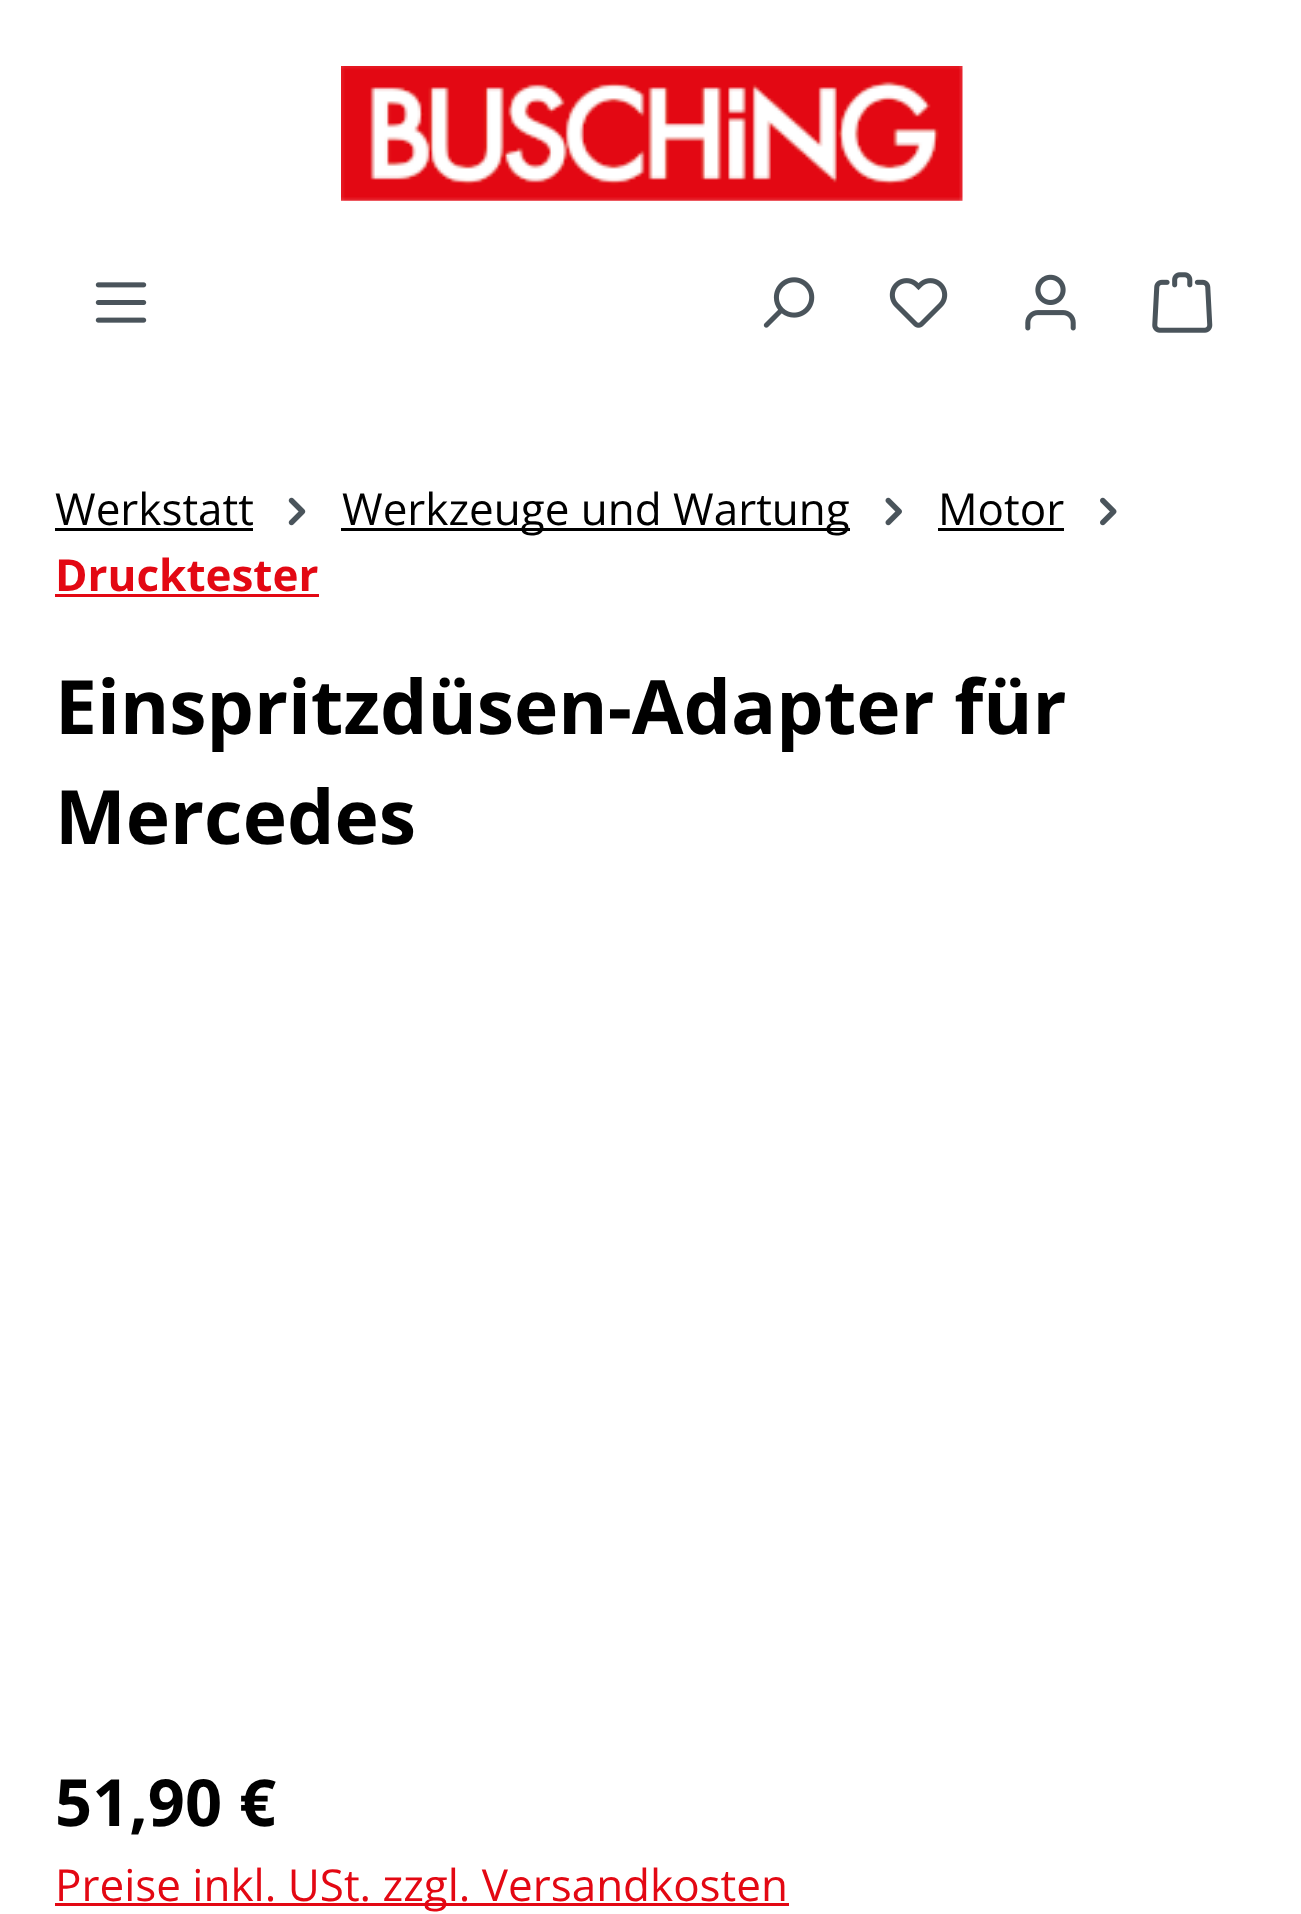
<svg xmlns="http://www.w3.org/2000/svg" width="1301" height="1914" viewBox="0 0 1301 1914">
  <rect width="100%" height="100%" fill="#fff"/>
  <image x="341" y="66" width="622" height="135" href="img/1.png"/>
  <image x="95" y="282" width="52" height="41" href="img/2.png"/>
  <image x="763" y="277" width="52" height="51" href="img/3.png"/>
  <image x="889" y="278" width="59" height="50" href="img/4.png"/>
  <image x="1025" y="274" width="51" height="57" href="img/5.png"/>
  <image x="1152" y="272" width="61" height="61" href="img/6.png"/>
  <path d="M55 528h198v3H55z" fill="#000"/>
  <image x="288" y="497" width="18" height="29" href="img/7.png"/>
  <path d="M341 528h509v3H341z" fill="#000"/>
  <image x="885" y="497" width="17" height="29" href="img/8.png"/>
  <path d="M938 528h126v3H938z" fill="#000"/>
  <image x="1100" y="497" width="17" height="29" href="img/9.png"/>
  <path d="M55 594h264v3H55z" fill="#e30813"/>
  <path d="M55 1903h734v3H55z" fill="#e30813"/>
  <g font-family="Open Sans" font-size="44" fill="#000">
    <text x="55" y="525">Werkstatt</text>
    <text x="342" y="525">Werkzeuge und Wartung</text>
    <text x="938" y="525">Motor</text>
  </g>
  <text x="55" y="591" font-family="Open Sans" font-size="44" font-weight="bold" fill="#e30813">Drucktester</text>
  <g font-family="Open Sans" font-size="75" font-weight="bold" fill="#000">
    <text x="55" y="734">Einspritzdüsen-Adapter für</text>
    <text x="55" y="844">Mercedes</text>
  </g>
  <text x="55" y="1826" font-family="Open Sans" font-size="65" font-weight="bold" fill="#000">51,90 €</text>
  <text x="55" y="1901" font-family="Open Sans" font-size="44" fill="#e30813">Preise inkl. USt. zzgl. Versandkosten</text>
</svg>
